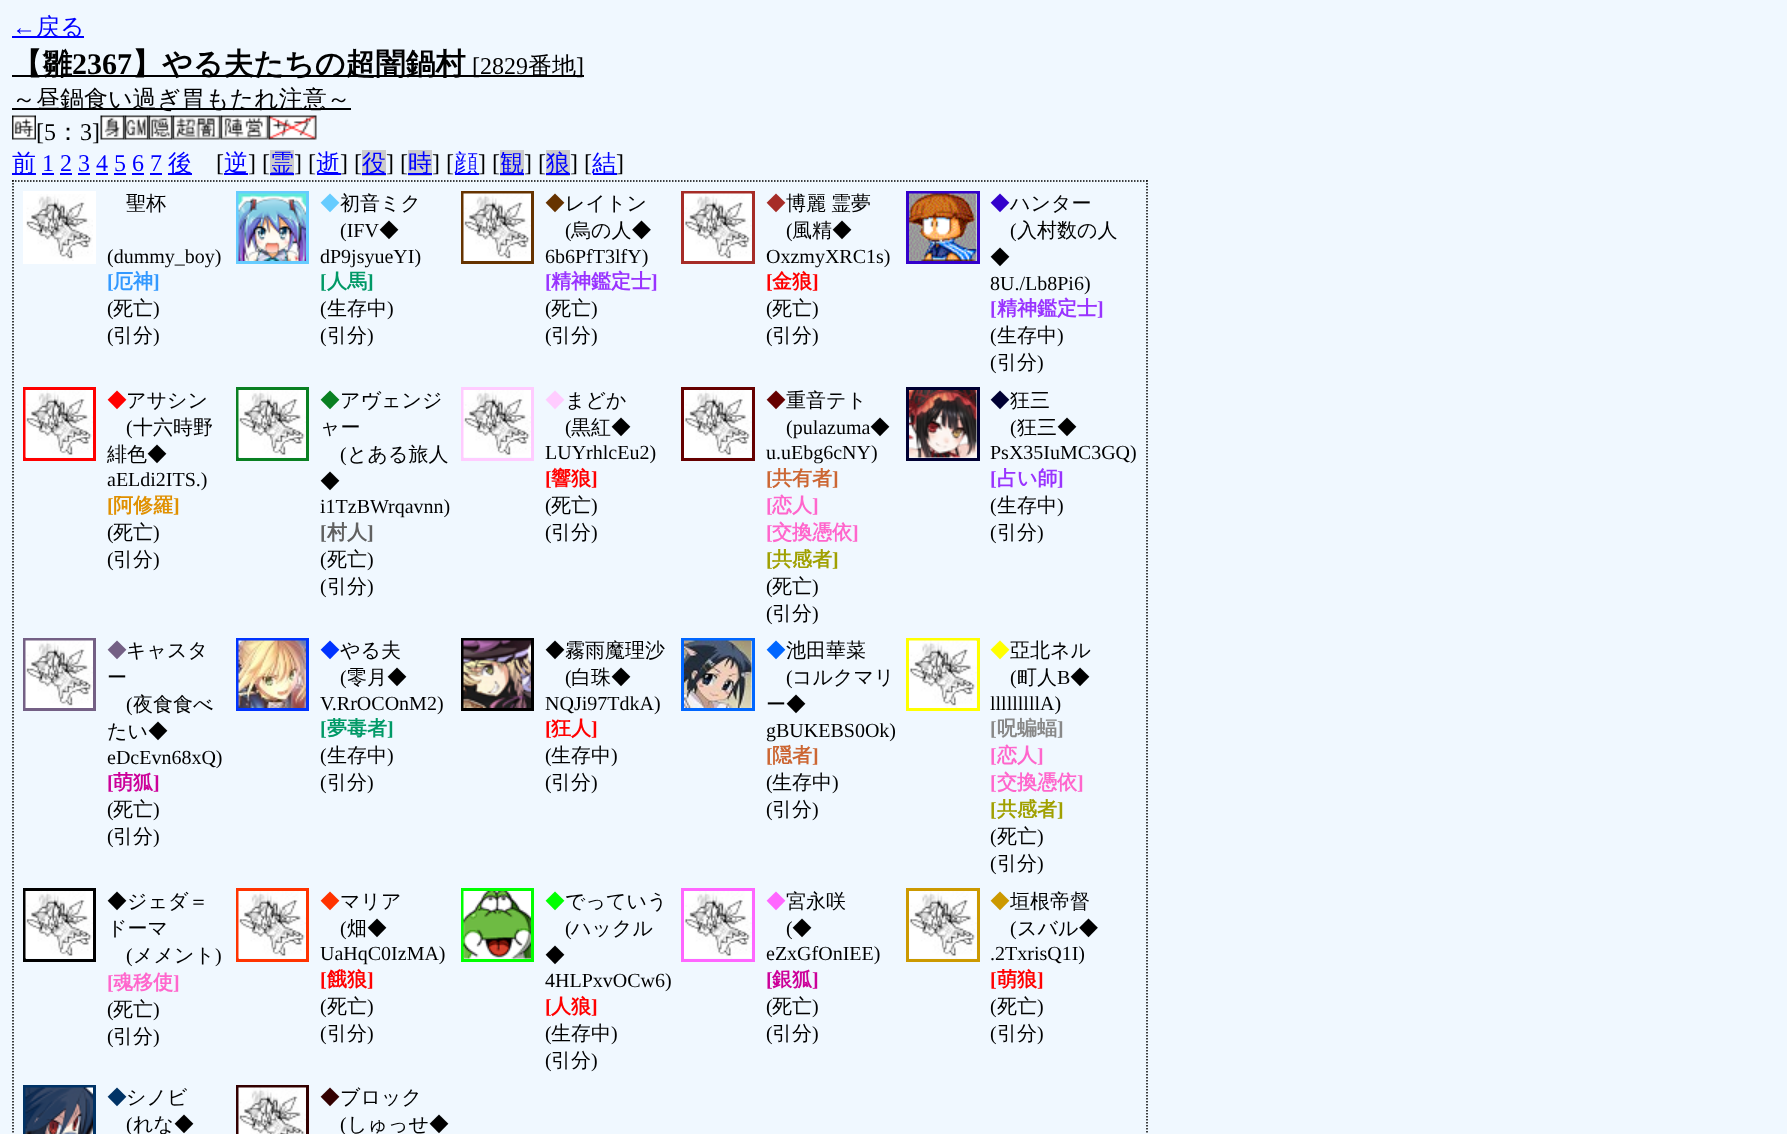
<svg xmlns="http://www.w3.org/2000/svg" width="1787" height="1134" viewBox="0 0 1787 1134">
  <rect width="100%" height="100%" fill="#f0f8ff"/>
  <path d="M12 36h72v2H12z" fill="#00f"/>
  <path d="M12 75h572v2H12z" fill="#000"/>
  <path d="M12 108h339v2H12z" fill="#000"/>
  <image x="12" y="115" width="24" height="25" href="img/1.png"/>
  <image x="100" y="115" width="25" height="25" href="img/2.png"/>
  <image x="124" y="115" width="25" height="25" href="img/3.png"/>
  <image x="148" y="115" width="25" height="25" href="img/4.png"/>
  <image x="172" y="115" width="49" height="25" href="img/5.png"/>
  <image x="220" y="115" width="49" height="25" href="img/6.png"/>
  <image x="268" y="115" width="49" height="25" href="img/7.png"/>
  <path d="M12 173h24v2H12z" fill="#00f"/>
  <path d="M42 173h12v2H42z" fill="#00f"/>
  <path d="M168 173h24v2H168z" fill="#00f"/>
  <path d="M224 173h24v2H224z" fill="#00f"/>
  <path d="M270 150h24v26H270z" fill="#ccc"/>
  <path d="M270 173h24v2H270z" fill="#00f"/>
  <path d="M317 173h24v2H317z" fill="#00f"/>
  <path d="M362 150h24v26H362z" fill="#ccc"/>
  <path d="M362 173h24v2H362z" fill="#00f"/>
  <path d="M408 150h24v26H408z" fill="#ccc"/>
  <path d="M408 173h24v2H408z" fill="#00f"/>
  <path d="M455 173h24v2H455z" fill="#00f"/>
  <path d="M500 150h24v26H500z" fill="#ccc"/>
  <path d="M500 173h24v2H500z" fill="#00f"/>
  <path d="M546 150h24v26H546z" fill="#ccc"/>
  <path d="M546 173h24v2H546z" fill="#00f"/>
  <path d="M593 173h24v2H593z" fill="#00f"/>
  <path d="M60 173h12v2H60z" fill="#00f"/>
  <path d="M78 173h12v2H78z" fill="#00f"/>
  <path d="M96 173h12v2H96z" fill="#00f"/>
  <path d="M114 173h12v2H114z" fill="#00f"/>
  <path d="M132 173h12v2H132z" fill="#00f"/>
  <path d="M150 173h12v2H150z" fill="#00f"/>
  <path d="M12 181H1147.5" fill="none" stroke="#000" stroke-width="1.5" stroke-dasharray="1.5 1.5"/>
  <path d="M1147 180V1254" fill="none" stroke="#000" stroke-width="1.5" stroke-dasharray="1.5 1.5"/>
  <path d="M13 180V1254" fill="none" stroke="#000" stroke-width="1.5" stroke-dasharray="1.5 1.5"/>
  <path d="M24.5 192.5h70v70H24.5z" fill="none" stroke="#fff" stroke-width="3"/>
  <image x="26" y="194" width="67" height="67" href="img/8.png"/>
  <path d="M237.5 192.5h70v70H237.5z" fill="none" stroke="#6cf" stroke-width="3"/>
  <image x="238" y="193" width="68" height="68" href="img/9.png"/>
  <path d="M462.5 192.5h70v70H462.5z" fill="none" stroke="#630" stroke-width="3"/>
  <image x="463" y="193" width="68" height="68" href="img/10.png"/>
  <path d="M682.5 192.5h71v70H682.5z" fill="none" stroke="#a62c27" stroke-width="3"/>
  <image x="684" y="193" width="68" height="68" href="img/11.png"/>
  <path d="M907.5 192.5h71v70H907.5z" fill="none" stroke="#30c" stroke-width="3"/>
  <image x="909" y="193" width="68" height="68" href="img/12.png"/>
  <path d="M24.5 388.5h70v71H24.5z" fill="none" stroke="#f00" stroke-width="3"/>
  <image x="25" y="390" width="68" height="68" href="img/13.png"/>
  <path d="M237.5 388.5h70v71H237.5z" fill="none" stroke="#098022" stroke-width="3"/>
  <image x="238" y="390" width="68" height="68" href="img/14.png"/>
  <path d="M462.5 388.5h70v71H462.5z" fill="none" stroke="#fcf" stroke-width="3"/>
  <image x="463" y="390" width="68" height="68" href="img/15.png"/>
  <path d="M682.5 388.5h71v71H682.5z" fill="none" stroke="#600" stroke-width="3"/>
  <image x="684" y="390" width="68" height="68" href="img/16.png"/>
  <path d="M907.5 388.5h71v71H907.5z" fill="none" stroke="#003" stroke-width="3"/>
  <image x="909" y="390" width="68" height="68" href="img/17.png"/>
  <path d="M24.5 639.5h70v70H24.5z" fill="none" stroke="#746085" stroke-width="3"/>
  <image x="25" y="640" width="68" height="68" href="img/18.png"/>
  <path d="M237.5 639.5h70v70H237.5z" fill="none" stroke="#03f" stroke-width="3"/>
  <image x="238" y="640" width="68" height="68" href="img/19.png"/>
  <path d="M462.5 639.5h70v70H462.5z" fill="none" stroke="#000" stroke-width="3"/>
  <image x="463" y="640" width="68" height="68" href="img/20.png"/>
  <path d="M682.5 639.5h71v70H682.5z" fill="none" stroke="#06f" stroke-width="3"/>
  <image x="684" y="640" width="68" height="68" href="img/21.png"/>
  <path d="M907.5 639.5h71v70H907.5z" fill="none" stroke="#ff0" stroke-width="3"/>
  <image x="909" y="640" width="68" height="68" href="img/22.png"/>
  <path d="M24.5 889.5h70v71H24.5z" fill="none" stroke="#000" stroke-width="3"/>
  <image x="25" y="891" width="68" height="68" href="img/23.png"/>
  <path d="M237.5 889.5h70v71H237.5z" fill="none" stroke="#f30" stroke-width="3"/>
  <image x="238" y="891" width="68" height="68" href="img/24.png"/>
  <path d="M462.5 889.5h70v71H462.5z" fill="none" stroke="#0f0" stroke-width="3"/>
  <image x="463" y="891" width="68" height="68" href="img/25.png"/>
  <path d="M682.5 889.5h71v71H682.5z" fill="none" stroke="#f6f" stroke-width="3"/>
  <image x="684" y="891" width="68" height="68" href="img/16.png"/>
  <path d="M907.5 889.5h71v71H907.5z" fill="none" stroke="#c90" stroke-width="3"/>
  <image x="909" y="891" width="68" height="68" href="img/16.png"/>
  <path d="M24.5 1086.5h70v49H24.5z" fill="none" stroke="#036" stroke-width="3"/>
  <image x="25" y="1087" width="68" height="47" href="img/26.png"/>
  <path d="M237.5 1086.5h70v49H237.5z" fill="none" stroke="#300" stroke-width="3"/>
  <image x="238" y="1087" width="68" height="47" href="img/27.png"/>
  <text x="12" y="35" font-family="Liberation Serif" font-size="24" fill="#00f">←</text>
  <text x="36" y="35" font-family="WenQuanYi Zen Hei" font-size="24" font-weight="500" fill="#00f">戻る</text>
  <text x="12" y="74" font-family="WenQuanYi Zen Hei" font-size="30" font-weight="bold" fill="#000">【雛</text>
  <text x="72" y="74" font-family="Liberation Serif" font-size="30" font-weight="bold" fill="#000">2367</text>
  <text x="132" y="74" font-family="WenQuanYi Zen Hei" font-size="30" font-weight="bold" fill="#000">】やる夫たちの超闇鍋村</text>
  <text x="472" y="74" font-family="Liberation Serif" font-size="24" fill="#000">[2829</text>
  <text x="528" y="74" font-family="WenQuanYi Zen Hei" font-size="24" font-weight="500" fill="#000">番地</text>
  <text x="576" y="74" font-family="Liberation Serif" font-size="24" fill="#000">]</text>
  <text x="12" y="107" font-family="WenQuanYi Zen Hei" font-size="24" font-weight="500" fill="#000">～昼鍋食い過ぎ胃もたれ注意～</text>
  <text x="36" y="140" font-family="Liberation Serif" font-size="24" fill="#000">[5</text>
  <text x="56" y="140" font-family="WenQuanYi Zen Hei" font-size="24" font-weight="500" fill="#000">：</text>
  <text x="80" y="140" font-family="Liberation Serif" font-size="24" fill="#000">3]</text>
  <text x="12" y="171" font-family="WenQuanYi Zen Hei" font-size="24" font-weight="500" fill="#00f">前</text>
  <text x="42" y="171" font-family="Liberation Serif" font-size="24" fill="#00f">1 2 3 4 5 6 7</text>
  <text x="168" y="171" font-family="WenQuanYi Zen Hei" font-size="24" font-weight="500" fill="#00f">後</text>
  <text x="216" y="171" font-family="Liberation Serif" font-size="24" fill="#000">[</text>
  <text x="224" y="171" font-family="WenQuanYi Zen Hei" font-size="24" font-weight="500" fill="#00f">逆</text>
  <text x="248" y="171" font-family="Liberation Serif" font-size="24" fill="#000">] [</text>
  <text x="270" y="171" font-family="WenQuanYi Zen Hei" font-size="24" font-weight="500" fill="#00f">霊</text>
  <text x="294" y="171" font-family="Liberation Serif" font-size="24" fill="#000">] [</text>
  <text x="316" y="171" font-family="WenQuanYi Zen Hei" font-size="24" font-weight="500" fill="#00f">逝</text>
  <text x="340" y="171" font-family="Liberation Serif" font-size="24" fill="#000">] [</text>
  <text x="362" y="171" font-family="WenQuanYi Zen Hei" font-size="24" font-weight="500" fill="#00f">役</text>
  <text x="386" y="171" font-family="Liberation Serif" font-size="24" fill="#000">] [</text>
  <text x="408" y="171" font-family="WenQuanYi Zen Hei" font-size="24" font-weight="500" fill="#00f">時</text>
  <text x="432" y="171" font-family="Liberation Serif" font-size="24" fill="#000">] [</text>
  <text x="454" y="171" font-family="WenQuanYi Zen Hei" font-size="24" font-weight="500" fill="#00f">顔</text>
  <text x="478" y="171" font-family="Liberation Serif" font-size="24" fill="#000">] [</text>
  <text x="500" y="171" font-family="WenQuanYi Zen Hei" font-size="24" font-weight="500" fill="#00f">観</text>
  <text x="524" y="171" font-family="Liberation Serif" font-size="24" fill="#000">] [</text>
  <text x="546" y="171" font-family="WenQuanYi Zen Hei" font-size="24" font-weight="500" fill="#00f">狼</text>
  <text x="570" y="171" font-family="Liberation Serif" font-size="24" fill="#000">] [</text>
  <text x="592" y="171" font-family="WenQuanYi Zen Hei" font-size="24" font-weight="500" fill="#00f">結</text>
  <text x="616" y="171" font-family="Liberation Serif" font-size="24" fill="#000">]</text>
  <text x="126" y="210" font-family="WenQuanYi Zen Hei" font-size="20" font-weight="500" fill="#000">聖杯</text>
  <text x="107" y="263" font-family="Liberation Serif" font-size="20" fill="#000">(dummy_boy)</text>
  <text x="107" y="288" font-family="Liberation Serif" font-size="20" font-weight="bold" fill="#39f">[</text>
  <text x="113" y="288" font-family="WenQuanYi Zen Hei" font-size="20" font-weight="bold" fill="#39f">厄神</text>
  <text x="153" y="288" font-family="Liberation Serif" font-size="20" font-weight="bold" fill="#39f">]</text>
  <text x="107" y="315" font-family="Liberation Serif" font-size="20" fill="#000">(</text>
  <text x="113" y="315" font-family="WenQuanYi Zen Hei" font-size="20" font-weight="500" fill="#000">死亡</text>
  <g font-family="Liberation Serif" font-size="20" fill="#000">
    <text x="153" y="315">)</text>
    <text x="107" y="342">(</text>
  </g>
  <text x="113" y="342" font-family="WenQuanYi Zen Hei" font-size="20" font-weight="500" fill="#000">引分</text>
  <text x="153" y="342" font-family="Liberation Serif" font-size="20" fill="#000">)</text>
  <text x="320" y="210" font-family="WenQuanYi Zen Hei" font-size="20" font-weight="500" fill="#6cf">◆</text>
  <text x="340" y="210" font-family="WenQuanYi Zen Hei" font-size="20" font-weight="500" fill="#000">初音ミク</text>
  <text x="340" y="237" font-family="Liberation Serif" font-size="20" fill="#000">(IFV</text>
  <text x="379" y="237" font-family="WenQuanYi Zen Hei" font-size="20" font-weight="500" fill="#000">◆</text>
  <text x="320" y="263" font-family="Liberation Serif" font-size="20" fill="#000">dP9jsyueYI)</text>
  <text x="320" y="288" font-family="Liberation Serif" font-size="20" font-weight="bold" fill="#096">[</text>
  <text x="327" y="288" font-family="WenQuanYi Zen Hei" font-size="20" font-weight="bold" fill="#096">人馬</text>
  <text x="367" y="288" font-family="Liberation Serif" font-size="20" font-weight="bold" fill="#096">]</text>
  <text x="320" y="315" font-family="Liberation Serif" font-size="20" fill="#000">(</text>
  <text x="327" y="315" font-family="WenQuanYi Zen Hei" font-size="20" font-weight="500" fill="#000">生存中</text>
  <g font-family="Liberation Serif" font-size="20" fill="#000">
    <text x="387" y="315">)</text>
    <text x="320" y="342">(</text>
  </g>
  <text x="327" y="342" font-family="WenQuanYi Zen Hei" font-size="20" font-weight="500" fill="#000">引分</text>
  <text x="367" y="342" font-family="Liberation Serif" font-size="20" fill="#000">)</text>
  <text x="545" y="210" font-family="WenQuanYi Zen Hei" font-size="20" font-weight="500" fill="#630">◆</text>
  <text x="565" y="210" font-family="WenQuanYi Zen Hei" font-size="20" font-weight="500" fill="#000">レイトン</text>
  <text x="565" y="237" font-family="Liberation Serif" font-size="20" fill="#000">(</text>
  <text x="571" y="237" font-family="WenQuanYi Zen Hei" font-size="20" font-weight="500" fill="#000">烏の人◆</text>
  <text x="545" y="263" font-family="Liberation Serif" font-size="20" fill="#000">6b6PfT3lfY)</text>
  <text x="545" y="288" font-family="Liberation Serif" font-size="20" font-weight="bold" fill="#93f">[</text>
  <text x="551" y="288" font-family="WenQuanYi Zen Hei" font-size="20" font-weight="bold" fill="#93f">精神鑑定士</text>
  <text x="651" y="288" font-family="Liberation Serif" font-size="20" font-weight="bold" fill="#93f">]</text>
  <text x="545" y="315" font-family="Liberation Serif" font-size="20" fill="#000">(</text>
  <text x="551" y="315" font-family="WenQuanYi Zen Hei" font-size="20" font-weight="500" fill="#000">死亡</text>
  <g font-family="Liberation Serif" font-size="20" fill="#000">
    <text x="591" y="315">)</text>
    <text x="545" y="342">(</text>
  </g>
  <text x="551" y="342" font-family="WenQuanYi Zen Hei" font-size="20" font-weight="500" fill="#000">引分</text>
  <text x="591" y="342" font-family="Liberation Serif" font-size="20" fill="#000">)</text>
  <text x="766" y="210" font-family="WenQuanYi Zen Hei" font-size="20" font-weight="500" fill="#a62c27">◆</text>
  <text x="786" y="210" word-spacing="-1" font-family="WenQuanYi Zen Hei" font-size="20" font-weight="500" fill="#000">博麗 霊夢</text>
  <text x="786" y="237" font-family="Liberation Serif" font-size="20" fill="#000">(</text>
  <text x="792" y="237" font-family="WenQuanYi Zen Hei" font-size="20" font-weight="500" fill="#000">風精◆</text>
  <text x="766" y="263" font-family="Liberation Serif" font-size="20" fill="#000">OxzmyXRC1s)</text>
  <text x="766" y="288" font-family="Liberation Serif" font-size="20" font-weight="bold" fill="#f00">[</text>
  <text x="772" y="288" font-family="WenQuanYi Zen Hei" font-size="20" font-weight="bold" fill="#f00">金狼</text>
  <text x="812" y="288" font-family="Liberation Serif" font-size="20" font-weight="bold" fill="#f00">]</text>
  <text x="766" y="315" font-family="Liberation Serif" font-size="20" fill="#000">(</text>
  <text x="772" y="315" font-family="WenQuanYi Zen Hei" font-size="20" font-weight="500" fill="#000">死亡</text>
  <g font-family="Liberation Serif" font-size="20" fill="#000">
    <text x="812" y="315">)</text>
    <text x="766" y="342">(</text>
  </g>
  <text x="772" y="342" font-family="WenQuanYi Zen Hei" font-size="20" font-weight="500" fill="#000">引分</text>
  <text x="812" y="342" font-family="Liberation Serif" font-size="20" fill="#000">)</text>
  <text x="990" y="210" font-family="WenQuanYi Zen Hei" font-size="20" font-weight="500" fill="#30c">◆</text>
  <text x="1010" y="210" font-family="WenQuanYi Zen Hei" font-size="20" font-weight="500" fill="#000">ハンター</text>
  <text x="1010" y="237" font-family="Liberation Serif" font-size="20" fill="#000">(</text>
  <g font-family="WenQuanYi Zen Hei" font-size="20" font-weight="500" fill="#000">
    <text x="1017" y="237">入村数の人</text>
    <text x="990" y="264">◆</text>
  </g>
  <text x="990" y="290" font-family="Liberation Serif" font-size="20" fill="#000">8U./Lb8Pi6)</text>
  <text x="990" y="315" font-family="Liberation Serif" font-size="20" font-weight="bold" fill="#93f">[</text>
  <text x="997" y="315" font-family="WenQuanYi Zen Hei" font-size="20" font-weight="bold" fill="#93f">精神鑑定士</text>
  <text x="1097" y="315" font-family="Liberation Serif" font-size="20" font-weight="bold" fill="#93f">]</text>
  <text x="990" y="342" font-family="Liberation Serif" font-size="20" fill="#000">(</text>
  <text x="997" y="342" font-family="WenQuanYi Zen Hei" font-size="20" font-weight="500" fill="#000">生存中</text>
  <g font-family="Liberation Serif" font-size="20" fill="#000">
    <text x="1057" y="342">)</text>
    <text x="990" y="369">(</text>
  </g>
  <text x="997" y="369" font-family="WenQuanYi Zen Hei" font-size="20" font-weight="500" fill="#000">引分</text>
  <text x="1037" y="369" font-family="Liberation Serif" font-size="20" fill="#000">)</text>
  <text x="107" y="407" font-family="WenQuanYi Zen Hei" font-size="20" font-weight="500" fill="#f00">◆</text>
  <text x="126" y="407" font-family="WenQuanYi Zen Hei" font-size="20" font-weight="500" fill="#000">アサシン</text>
  <text x="126" y="434" font-family="Liberation Serif" font-size="20" fill="#000">(</text>
  <g font-family="WenQuanYi Zen Hei" font-size="20" font-weight="500" fill="#000">
    <text x="133" y="434">十六時野</text>
    <text x="107" y="461">緋色◆</text>
  </g>
  <text x="107" y="486" font-family="Liberation Serif" font-size="20" fill="#000">aELdi2ITS.)</text>
  <text x="107" y="512" font-family="Liberation Serif" font-size="20" font-weight="bold" fill="#e09000">[</text>
  <text x="113" y="512" font-family="WenQuanYi Zen Hei" font-size="20" font-weight="bold" fill="#e09000">阿修羅</text>
  <text x="173" y="512" font-family="Liberation Serif" font-size="20" font-weight="bold" fill="#e09000">]</text>
  <text x="107" y="539" font-family="Liberation Serif" font-size="20" fill="#000">(</text>
  <text x="113" y="539" font-family="WenQuanYi Zen Hei" font-size="20" font-weight="500" fill="#000">死亡</text>
  <g font-family="Liberation Serif" font-size="20" fill="#000">
    <text x="153" y="539">)</text>
    <text x="107" y="566">(</text>
  </g>
  <text x="113" y="566" font-family="WenQuanYi Zen Hei" font-size="20" font-weight="500" fill="#000">引分</text>
  <text x="153" y="566" font-family="Liberation Serif" font-size="20" fill="#000">)</text>
  <text x="320" y="407" font-family="WenQuanYi Zen Hei" font-size="20" font-weight="500" fill="#098022">◆</text>
  <g font-family="WenQuanYi Zen Hei" font-size="20" font-weight="500" fill="#000">
    <text x="340" y="407">アヴェンジ</text>
    <text x="320" y="434">ャー</text>
  </g>
  <text x="340" y="461" font-family="Liberation Serif" font-size="20" fill="#000">(</text>
  <g font-family="WenQuanYi Zen Hei" font-size="20" font-weight="500" fill="#000">
    <text x="347" y="461">とある旅人</text>
    <text x="320" y="488">◆</text>
  </g>
  <text x="320" y="513" font-family="Liberation Serif" font-size="20" fill="#000">i1TzBWrqavnn)</text>
  <text x="320" y="539" font-family="Liberation Serif" font-size="20" font-weight="bold" fill="#606060">[</text>
  <text x="327" y="539" font-family="WenQuanYi Zen Hei" font-size="20" font-weight="bold" fill="#606060">村人</text>
  <text x="367" y="539" font-family="Liberation Serif" font-size="20" font-weight="bold" fill="#606060">]</text>
  <text x="320" y="566" font-family="Liberation Serif" font-size="20" fill="#000">(</text>
  <text x="327" y="566" font-family="WenQuanYi Zen Hei" font-size="20" font-weight="500" fill="#000">死亡</text>
  <g font-family="Liberation Serif" font-size="20" fill="#000">
    <text x="367" y="566">)</text>
    <text x="320" y="593">(</text>
  </g>
  <text x="327" y="593" font-family="WenQuanYi Zen Hei" font-size="20" font-weight="500" fill="#000">引分</text>
  <text x="367" y="593" font-family="Liberation Serif" font-size="20" fill="#000">)</text>
  <text x="545" y="407" font-family="WenQuanYi Zen Hei" font-size="20" font-weight="500" fill="#fcf">◆</text>
  <text x="565" y="407" font-family="WenQuanYi Zen Hei" font-size="20" font-weight="500" fill="#000">まどか</text>
  <text x="565" y="434" font-family="Liberation Serif" font-size="20" fill="#000">(</text>
  <text x="571" y="434" font-family="WenQuanYi Zen Hei" font-size="20" font-weight="500" fill="#000">黒紅◆</text>
  <text x="545" y="459" font-family="Liberation Serif" font-size="20" fill="#000">LUYrhlcEu2)</text>
  <text x="545" y="485" font-family="Liberation Serif" font-size="20" font-weight="bold" fill="#f00">[</text>
  <text x="551" y="485" font-family="WenQuanYi Zen Hei" font-size="20" font-weight="bold" fill="#f00">響狼</text>
  <text x="591" y="485" font-family="Liberation Serif" font-size="20" font-weight="bold" fill="#f00">]</text>
  <text x="545" y="512" font-family="Liberation Serif" font-size="20" fill="#000">(</text>
  <text x="551" y="512" font-family="WenQuanYi Zen Hei" font-size="20" font-weight="500" fill="#000">死亡</text>
  <g font-family="Liberation Serif" font-size="20" fill="#000">
    <text x="591" y="512">)</text>
    <text x="545" y="539">(</text>
  </g>
  <text x="551" y="539" font-family="WenQuanYi Zen Hei" font-size="20" font-weight="500" fill="#000">引分</text>
  <text x="591" y="539" font-family="Liberation Serif" font-size="20" fill="#000">)</text>
  <text x="766" y="407" font-family="WenQuanYi Zen Hei" font-size="20" font-weight="500" fill="#600">◆</text>
  <text x="786" y="407" font-family="WenQuanYi Zen Hei" font-size="20" font-weight="500" fill="#000">重音テト</text>
  <text x="786" y="434" font-family="Liberation Serif" font-size="20" fill="#000">(pulazuma</text>
  <text x="870" y="434" font-family="WenQuanYi Zen Hei" font-size="20" font-weight="500" fill="#000">◆</text>
  <text x="766" y="459" font-family="Liberation Serif" font-size="20" fill="#000">u.uEbg6cNY)</text>
  <text x="766" y="485" font-family="Liberation Serif" font-size="20" font-weight="bold" fill="#c63">[</text>
  <text x="772" y="485" font-family="WenQuanYi Zen Hei" font-size="20" font-weight="bold" fill="#c63">共有者</text>
  <text x="832" y="485" font-family="Liberation Serif" font-size="20" font-weight="bold" fill="#c63">]</text>
  <text x="766" y="512" font-family="Liberation Serif" font-size="20" font-weight="bold" fill="#f6c">[</text>
  <text x="772" y="512" font-family="WenQuanYi Zen Hei" font-size="20" font-weight="bold" fill="#f6c">恋人</text>
  <g font-family="Liberation Serif" font-size="20" font-weight="bold" fill="#f6c">
    <text x="812" y="512">]</text>
    <text x="766" y="539">[</text>
  </g>
  <text x="772" y="539" font-family="WenQuanYi Zen Hei" font-size="20" font-weight="bold" fill="#f6c">交換憑依</text>
  <text x="852" y="539" font-family="Liberation Serif" font-size="20" font-weight="bold" fill="#f6c">]</text>
  <text x="766" y="566" font-family="Liberation Serif" font-size="20" font-weight="bold" fill="#a0a000">[</text>
  <text x="772" y="566" font-family="WenQuanYi Zen Hei" font-size="20" font-weight="bold" fill="#a0a000">共感者</text>
  <text x="832" y="566" font-family="Liberation Serif" font-size="20" font-weight="bold" fill="#a0a000">]</text>
  <text x="766" y="593" font-family="Liberation Serif" font-size="20" fill="#000">(</text>
  <text x="772" y="593" font-family="WenQuanYi Zen Hei" font-size="20" font-weight="500" fill="#000">死亡</text>
  <g font-family="Liberation Serif" font-size="20" fill="#000">
    <text x="812" y="593">)</text>
    <text x="766" y="620">(</text>
  </g>
  <text x="772" y="620" font-family="WenQuanYi Zen Hei" font-size="20" font-weight="500" fill="#000">引分</text>
  <text x="812" y="620" font-family="Liberation Serif" font-size="20" fill="#000">)</text>
  <text x="990" y="407" font-family="WenQuanYi Zen Hei" font-size="20" font-weight="500" fill="#003">◆</text>
  <text x="1010" y="407" font-family="WenQuanYi Zen Hei" font-size="20" font-weight="500" fill="#000">狂三</text>
  <text x="1010" y="434" font-family="Liberation Serif" font-size="20" fill="#000">(</text>
  <text x="1017" y="434" font-family="WenQuanYi Zen Hei" font-size="20" font-weight="500" fill="#000">狂三◆</text>
  <text x="990" y="459" font-family="Liberation Serif" font-size="20" fill="#000">PsX35IuMC3GQ)</text>
  <text x="990" y="485" font-family="Liberation Serif" font-size="20" font-weight="bold" fill="#93f">[</text>
  <text x="997" y="485" font-family="WenQuanYi Zen Hei" font-size="20" font-weight="bold" fill="#93f">占い師</text>
  <text x="1057" y="485" font-family="Liberation Serif" font-size="20" font-weight="bold" fill="#93f">]</text>
  <text x="990" y="512" font-family="Liberation Serif" font-size="20" fill="#000">(</text>
  <text x="997" y="512" font-family="WenQuanYi Zen Hei" font-size="20" font-weight="500" fill="#000">生存中</text>
  <g font-family="Liberation Serif" font-size="20" fill="#000">
    <text x="1057" y="512">)</text>
    <text x="990" y="539">(</text>
  </g>
  <text x="997" y="539" font-family="WenQuanYi Zen Hei" font-size="20" font-weight="500" fill="#000">引分</text>
  <text x="1037" y="539" font-family="Liberation Serif" font-size="20" fill="#000">)</text>
  <text x="107" y="657" font-family="WenQuanYi Zen Hei" font-size="20" font-weight="500" fill="#746085">◆</text>
  <g font-family="WenQuanYi Zen Hei" font-size="20" font-weight="500" fill="#000">
    <text x="126" y="657">キャスタ</text>
    <text x="107" y="684">ー</text>
  </g>
  <text x="126" y="711" font-family="Liberation Serif" font-size="20" fill="#000">(</text>
  <g font-family="WenQuanYi Zen Hei" font-size="20" font-weight="500" fill="#000">
    <text x="133" y="711">夜食食べ</text>
    <text x="107" y="738">たい◆</text>
  </g>
  <text x="107" y="764" font-family="Liberation Serif" font-size="20" fill="#000">eDcEvn68xQ)</text>
  <text x="107" y="789" font-family="Liberation Serif" font-size="20" font-weight="bold" fill="#c09">[</text>
  <text x="113" y="789" font-family="WenQuanYi Zen Hei" font-size="20" font-weight="bold" fill="#c09">萌狐</text>
  <text x="153" y="789" font-family="Liberation Serif" font-size="20" font-weight="bold" fill="#c09">]</text>
  <text x="107" y="816" font-family="Liberation Serif" font-size="20" fill="#000">(</text>
  <text x="113" y="816" font-family="WenQuanYi Zen Hei" font-size="20" font-weight="500" fill="#000">死亡</text>
  <g font-family="Liberation Serif" font-size="20" fill="#000">
    <text x="153" y="816">)</text>
    <text x="107" y="843">(</text>
  </g>
  <text x="113" y="843" font-family="WenQuanYi Zen Hei" font-size="20" font-weight="500" fill="#000">引分</text>
  <text x="153" y="843" font-family="Liberation Serif" font-size="20" fill="#000">)</text>
  <text x="320" y="657" font-family="WenQuanYi Zen Hei" font-size="20" font-weight="500" fill="#03f">◆</text>
  <text x="340" y="657" font-family="WenQuanYi Zen Hei" font-size="20" font-weight="500" fill="#000">やる夫</text>
  <text x="340" y="684" font-family="Liberation Serif" font-size="20" fill="#000">(</text>
  <text x="347" y="684" font-family="WenQuanYi Zen Hei" font-size="20" font-weight="500" fill="#000">零月◆</text>
  <text x="320" y="710" font-family="Liberation Serif" font-size="20" fill="#000">V.RrOCOnM2)</text>
  <text x="320" y="735" font-family="Liberation Serif" font-size="20" font-weight="bold" fill="#096">[</text>
  <text x="327" y="735" font-family="WenQuanYi Zen Hei" font-size="20" font-weight="bold" fill="#096">夢毒者</text>
  <text x="387" y="735" font-family="Liberation Serif" font-size="20" font-weight="bold" fill="#096">]</text>
  <text x="320" y="762" font-family="Liberation Serif" font-size="20" fill="#000">(</text>
  <text x="327" y="762" font-family="WenQuanYi Zen Hei" font-size="20" font-weight="500" fill="#000">生存中</text>
  <g font-family="Liberation Serif" font-size="20" fill="#000">
    <text x="387" y="762">)</text>
    <text x="320" y="789">(</text>
  </g>
  <text x="327" y="789" font-family="WenQuanYi Zen Hei" font-size="20" font-weight="500" fill="#000">引分</text>
  <text x="367" y="789" font-family="Liberation Serif" font-size="20" fill="#000">)</text>
  <text x="545" y="657" font-family="WenQuanYi Zen Hei" font-size="20" font-weight="500" fill="#000">◆霧雨魔理沙</text>
  <text x="565" y="684" font-family="Liberation Serif" font-size="20" fill="#000">(</text>
  <text x="571" y="684" font-family="WenQuanYi Zen Hei" font-size="20" font-weight="500" fill="#000">白珠◆</text>
  <text x="545" y="710" font-family="Liberation Serif" font-size="20" fill="#000">NQJi97TdkA)</text>
  <text x="545" y="735" font-family="Liberation Serif" font-size="20" font-weight="bold" fill="#f00">[</text>
  <text x="551" y="735" font-family="WenQuanYi Zen Hei" font-size="20" font-weight="bold" fill="#f00">狂人</text>
  <text x="591" y="735" font-family="Liberation Serif" font-size="20" font-weight="bold" fill="#f00">]</text>
  <text x="545" y="762" font-family="Liberation Serif" font-size="20" fill="#000">(</text>
  <text x="551" y="762" font-family="WenQuanYi Zen Hei" font-size="20" font-weight="500" fill="#000">生存中</text>
  <g font-family="Liberation Serif" font-size="20" fill="#000">
    <text x="611" y="762">)</text>
    <text x="545" y="789">(</text>
  </g>
  <text x="551" y="789" font-family="WenQuanYi Zen Hei" font-size="20" font-weight="500" fill="#000">引分</text>
  <text x="591" y="789" font-family="Liberation Serif" font-size="20" fill="#000">)</text>
  <text x="766" y="657" font-family="WenQuanYi Zen Hei" font-size="20" font-weight="500" fill="#06f">◆</text>
  <text x="786" y="657" font-family="WenQuanYi Zen Hei" font-size="20" font-weight="500" fill="#000">池田華菜</text>
  <text x="786" y="684" font-family="Liberation Serif" font-size="20" fill="#000">(</text>
  <g font-family="WenQuanYi Zen Hei" font-size="20" font-weight="500" fill="#000">
    <text x="792" y="684">コルクマリ</text>
    <text x="766" y="711">ー◆</text>
  </g>
  <text x="766" y="737" font-family="Liberation Serif" font-size="20" fill="#000">gBUKEBS0Ok)</text>
  <text x="766" y="762" font-family="Liberation Serif" font-size="20" font-weight="bold" fill="#c63">[</text>
  <text x="772" y="762" font-family="WenQuanYi Zen Hei" font-size="20" font-weight="bold" fill="#c63">隠者</text>
  <text x="812" y="762" font-family="Liberation Serif" font-size="20" font-weight="bold" fill="#c63">]</text>
  <text x="766" y="789" font-family="Liberation Serif" font-size="20" fill="#000">(</text>
  <text x="772" y="789" font-family="WenQuanYi Zen Hei" font-size="20" font-weight="500" fill="#000">生存中</text>
  <g font-family="Liberation Serif" font-size="20" fill="#000">
    <text x="832" y="789">)</text>
    <text x="766" y="816">(</text>
  </g>
  <text x="772" y="816" font-family="WenQuanYi Zen Hei" font-size="20" font-weight="500" fill="#000">引分</text>
  <text x="812" y="816" font-family="Liberation Serif" font-size="20" fill="#000">)</text>
  <text x="990" y="657" font-family="WenQuanYi Zen Hei" font-size="20" font-weight="500" fill="#ff0">◆</text>
  <text x="1010" y="657" font-family="WenQuanYi Zen Hei" font-size="20" font-weight="500" fill="#000">亞北ネル</text>
  <text x="1010" y="684" font-family="Liberation Serif" font-size="20" fill="#000">(</text>
  <text x="1017" y="684" font-family="WenQuanYi Zen Hei" font-size="20" font-weight="500" fill="#000">町人</text>
  <text x="1057" y="684" font-family="Liberation Serif" font-size="20" fill="#000">B</text>
  <text x="1070" y="684" font-family="WenQuanYi Zen Hei" font-size="20" font-weight="500" fill="#000">◆</text>
  <text x="990" y="710" font-family="Liberation Serif" font-size="20" fill="#000">lllllllllA)</text>
  <text x="990" y="735" font-family="Liberation Serif" font-size="20" font-weight="bold" fill="#888">[</text>
  <text x="997" y="735" font-family="WenQuanYi Zen Hei" font-size="20" font-weight="bold" fill="#888">呪蝙蝠</text>
  <text x="1057" y="735" font-family="Liberation Serif" font-size="20" font-weight="bold" fill="#888">]</text>
  <text x="990" y="762" font-family="Liberation Serif" font-size="20" font-weight="bold" fill="#f6c">[</text>
  <text x="997" y="762" font-family="WenQuanYi Zen Hei" font-size="20" font-weight="bold" fill="#f6c">恋人</text>
  <g font-family="Liberation Serif" font-size="20" font-weight="bold" fill="#f6c">
    <text x="1037" y="762">]</text>
    <text x="990" y="789">[</text>
  </g>
  <text x="997" y="789" font-family="WenQuanYi Zen Hei" font-size="20" font-weight="bold" fill="#f6c">交換憑依</text>
  <text x="1077" y="789" font-family="Liberation Serif" font-size="20" font-weight="bold" fill="#f6c">]</text>
  <text x="990" y="816" font-family="Liberation Serif" font-size="20" font-weight="bold" fill="#a0a000">[</text>
  <text x="997" y="816" font-family="WenQuanYi Zen Hei" font-size="20" font-weight="bold" fill="#a0a000">共感者</text>
  <text x="1057" y="816" font-family="Liberation Serif" font-size="20" font-weight="bold" fill="#a0a000">]</text>
  <text x="990" y="843" font-family="Liberation Serif" font-size="20" fill="#000">(</text>
  <text x="997" y="843" font-family="WenQuanYi Zen Hei" font-size="20" font-weight="500" fill="#000">死亡</text>
  <g font-family="Liberation Serif" font-size="20" fill="#000">
    <text x="1037" y="843">)</text>
    <text x="990" y="870">(</text>
  </g>
  <text x="997" y="870" font-family="WenQuanYi Zen Hei" font-size="20" font-weight="500" fill="#000">引分</text>
  <text x="1037" y="870" font-family="Liberation Serif" font-size="20" fill="#000">)</text>
  <g font-family="WenQuanYi Zen Hei" font-size="20" font-weight="500" fill="#000">
    <text x="107" y="908">◆ジェダ＝</text>
    <text x="107" y="935">ドーマ</text>
  </g>
  <text x="126" y="962" font-family="Liberation Serif" font-size="20" fill="#000">(</text>
  <text x="133" y="962" font-family="WenQuanYi Zen Hei" font-size="20" font-weight="500" fill="#000">メメント</text>
  <text x="215" y="962" font-family="Liberation Serif" font-size="20" fill="#000">)</text>
  <text x="107" y="989" font-family="Liberation Serif" font-size="20" font-weight="bold" fill="#f6c">[</text>
  <text x="113" y="989" font-family="WenQuanYi Zen Hei" font-size="20" font-weight="bold" fill="#f6c">魂移使</text>
  <text x="173" y="989" font-family="Liberation Serif" font-size="20" font-weight="bold" fill="#f6c">]</text>
  <text x="107" y="1016" font-family="Liberation Serif" font-size="20" fill="#000">(</text>
  <text x="113" y="1016" font-family="WenQuanYi Zen Hei" font-size="20" font-weight="500" fill="#000">死亡</text>
  <g font-family="Liberation Serif" font-size="20" fill="#000">
    <text x="153" y="1016">)</text>
    <text x="107" y="1043">(</text>
  </g>
  <text x="113" y="1043" font-family="WenQuanYi Zen Hei" font-size="20" font-weight="500" fill="#000">引分</text>
  <text x="153" y="1043" font-family="Liberation Serif" font-size="20" fill="#000">)</text>
  <text x="320" y="908" font-family="WenQuanYi Zen Hei" font-size="20" font-weight="500" fill="#f30">◆</text>
  <text x="340" y="908" font-family="WenQuanYi Zen Hei" font-size="20" font-weight="500" fill="#000">マリア</text>
  <text x="340" y="935" font-family="Liberation Serif" font-size="20" fill="#000">(</text>
  <text x="347" y="935" font-family="WenQuanYi Zen Hei" font-size="20" font-weight="500" fill="#000">畑◆</text>
  <text x="320" y="960" font-family="Liberation Serif" font-size="20" fill="#000">UaHqC0IzMA)</text>
  <text x="320" y="986" font-family="Liberation Serif" font-size="20" font-weight="bold" fill="#f00">[</text>
  <text x="327" y="986" font-family="WenQuanYi Zen Hei" font-size="20" font-weight="bold" fill="#f00">餓狼</text>
  <text x="367" y="986" font-family="Liberation Serif" font-size="20" font-weight="bold" fill="#f00">]</text>
  <text x="320" y="1013" font-family="Liberation Serif" font-size="20" fill="#000">(</text>
  <text x="327" y="1013" font-family="WenQuanYi Zen Hei" font-size="20" font-weight="500" fill="#000">死亡</text>
  <g font-family="Liberation Serif" font-size="20" fill="#000">
    <text x="367" y="1013">)</text>
    <text x="320" y="1040">(</text>
  </g>
  <text x="327" y="1040" font-family="WenQuanYi Zen Hei" font-size="20" font-weight="500" fill="#000">引分</text>
  <text x="367" y="1040" font-family="Liberation Serif" font-size="20" fill="#000">)</text>
  <text x="545" y="908" font-family="WenQuanYi Zen Hei" font-size="20" font-weight="500" fill="#0f0">◆</text>
  <text x="565" y="908" font-family="WenQuanYi Zen Hei" font-size="20" font-weight="500" fill="#000">でっていう</text>
  <text x="565" y="935" font-family="Liberation Serif" font-size="20" fill="#000">(</text>
  <g font-family="WenQuanYi Zen Hei" font-size="20" font-weight="500" fill="#000">
    <text x="571" y="935">ハックル</text>
    <text x="545" y="962">◆</text>
  </g>
  <text x="545" y="987" font-family="Liberation Serif" font-size="20" fill="#000">4HLPxvOCw6)</text>
  <text x="545" y="1013" font-family="Liberation Serif" font-size="20" font-weight="bold" fill="#f00">[</text>
  <text x="551" y="1013" font-family="WenQuanYi Zen Hei" font-size="20" font-weight="bold" fill="#f00">人狼</text>
  <text x="591" y="1013" font-family="Liberation Serif" font-size="20" font-weight="bold" fill="#f00">]</text>
  <text x="545" y="1040" font-family="Liberation Serif" font-size="20" fill="#000">(</text>
  <text x="551" y="1040" font-family="WenQuanYi Zen Hei" font-size="20" font-weight="500" fill="#000">生存中</text>
  <g font-family="Liberation Serif" font-size="20" fill="#000">
    <text x="611" y="1040">)</text>
    <text x="545" y="1067">(</text>
  </g>
  <text x="551" y="1067" font-family="WenQuanYi Zen Hei" font-size="20" font-weight="500" fill="#000">引分</text>
  <text x="591" y="1067" font-family="Liberation Serif" font-size="20" fill="#000">)</text>
  <text x="766" y="908" font-family="WenQuanYi Zen Hei" font-size="20" font-weight="500" fill="#f6f">◆</text>
  <text x="786" y="908" font-family="WenQuanYi Zen Hei" font-size="20" font-weight="500" fill="#000">宮永咲</text>
  <text x="786" y="935" font-family="Liberation Serif" font-size="20" fill="#000">(</text>
  <text x="792" y="935" font-family="WenQuanYi Zen Hei" font-size="20" font-weight="500" fill="#000">◆</text>
  <text x="766" y="960" font-family="Liberation Serif" font-size="20" fill="#000">eZxGfOnIEE)</text>
  <text x="766" y="986" font-family="Liberation Serif" font-size="20" font-weight="bold" fill="#c09">[</text>
  <text x="772" y="986" font-family="WenQuanYi Zen Hei" font-size="20" font-weight="bold" fill="#c09">銀狐</text>
  <text x="812" y="986" font-family="Liberation Serif" font-size="20" font-weight="bold" fill="#c09">]</text>
  <text x="766" y="1013" font-family="Liberation Serif" font-size="20" fill="#000">(</text>
  <text x="772" y="1013" font-family="WenQuanYi Zen Hei" font-size="20" font-weight="500" fill="#000">死亡</text>
  <g font-family="Liberation Serif" font-size="20" fill="#000">
    <text x="812" y="1013">)</text>
    <text x="766" y="1040">(</text>
  </g>
  <text x="772" y="1040" font-family="WenQuanYi Zen Hei" font-size="20" font-weight="500" fill="#000">引分</text>
  <text x="812" y="1040" font-family="Liberation Serif" font-size="20" fill="#000">)</text>
  <text x="990" y="908" font-family="WenQuanYi Zen Hei" font-size="20" font-weight="500" fill="#c90">◆</text>
  <text x="1010" y="908" font-family="WenQuanYi Zen Hei" font-size="20" font-weight="500" fill="#000">垣根帝督</text>
  <text x="1010" y="935" font-family="Liberation Serif" font-size="20" fill="#000">(</text>
  <text x="1017" y="935" font-family="WenQuanYi Zen Hei" font-size="20" font-weight="500" fill="#000">スバル◆</text>
  <text x="990" y="960" font-family="Liberation Serif" font-size="20" fill="#000">.2TxrisQ1I)</text>
  <text x="990" y="986" font-family="Liberation Serif" font-size="20" font-weight="bold" fill="#f00">[</text>
  <text x="997" y="986" font-family="WenQuanYi Zen Hei" font-size="20" font-weight="bold" fill="#f00">萌狼</text>
  <text x="1037" y="986" font-family="Liberation Serif" font-size="20" font-weight="bold" fill="#f00">]</text>
  <text x="990" y="1013" font-family="Liberation Serif" font-size="20" fill="#000">(</text>
  <text x="997" y="1013" font-family="WenQuanYi Zen Hei" font-size="20" font-weight="500" fill="#000">死亡</text>
  <g font-family="Liberation Serif" font-size="20" fill="#000">
    <text x="1037" y="1013">)</text>
    <text x="990" y="1040">(</text>
  </g>
  <text x="997" y="1040" font-family="WenQuanYi Zen Hei" font-size="20" font-weight="500" fill="#000">引分</text>
  <text x="1037" y="1040" font-family="Liberation Serif" font-size="20" fill="#000">)</text>
  <text x="107" y="1104" font-family="WenQuanYi Zen Hei" font-size="20" font-weight="500" fill="#036">◆</text>
  <text x="126" y="1104" font-family="WenQuanYi Zen Hei" font-size="20" font-weight="500" fill="#000">シノビ</text>
  <text x="126" y="1131" font-family="Liberation Serif" font-size="20" fill="#000">(</text>
  <text x="133" y="1131" font-family="WenQuanYi Zen Hei" font-size="20" font-weight="500" fill="#000">れな◆</text>
  <text x="320" y="1104" font-family="WenQuanYi Zen Hei" font-size="20" font-weight="500" fill="#300">◆</text>
  <text x="340" y="1104" font-family="WenQuanYi Zen Hei" font-size="20" font-weight="500" fill="#000">ブロック</text>
  <text x="340" y="1131" font-family="Liberation Serif" font-size="20" fill="#000">(</text>
  <text x="347" y="1131" font-family="WenQuanYi Zen Hei" font-size="20" font-weight="500" fill="#000">しゅっせ◆</text>
</svg>
